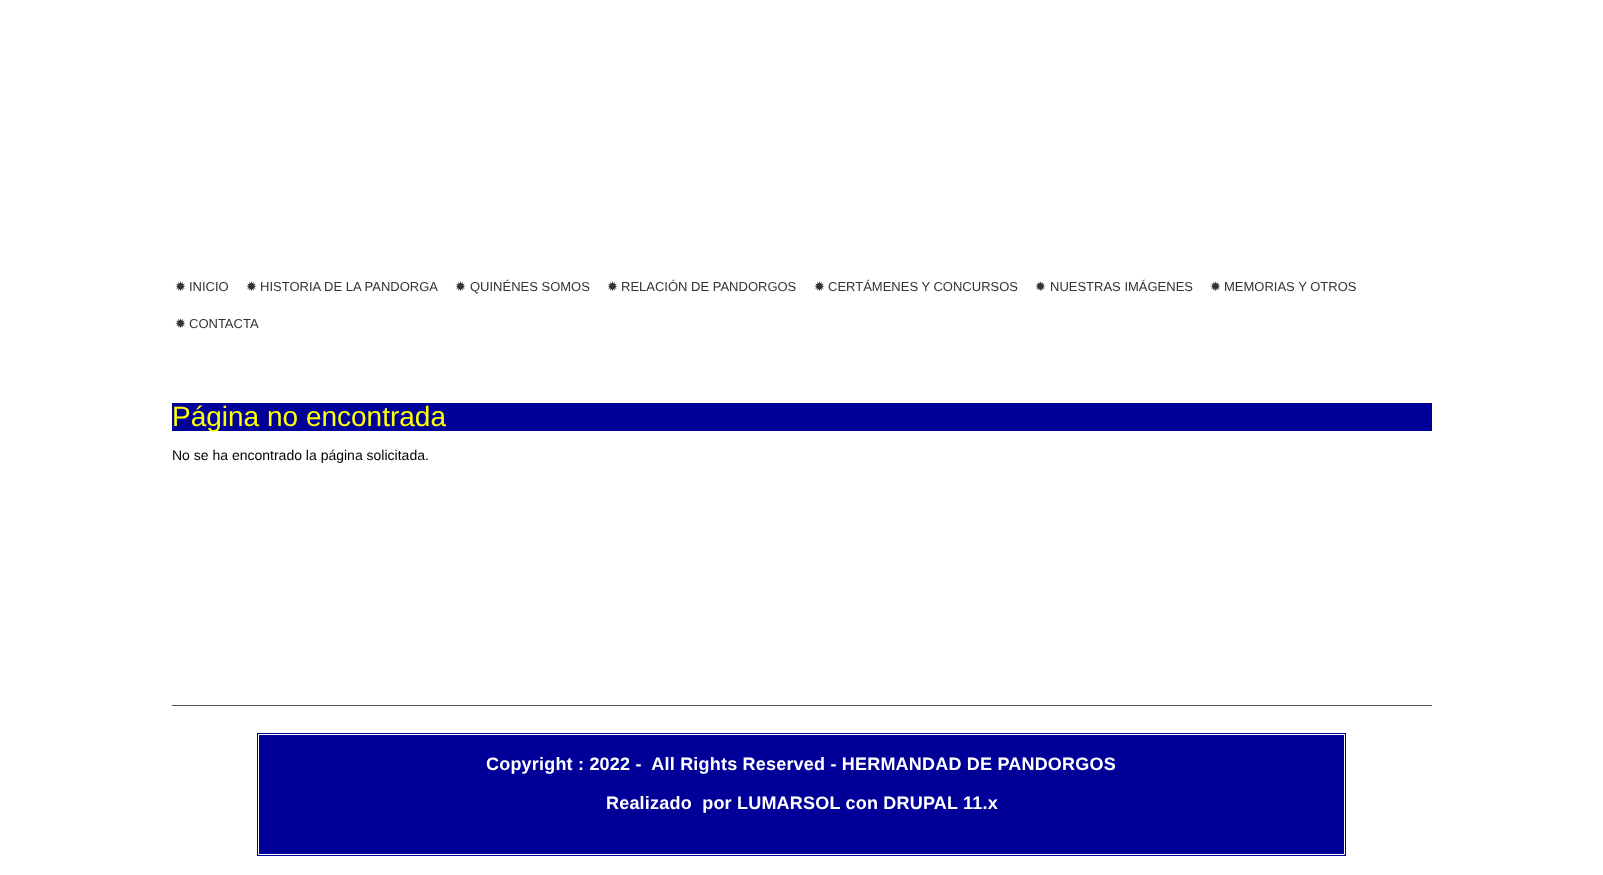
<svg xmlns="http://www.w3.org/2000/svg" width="1603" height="875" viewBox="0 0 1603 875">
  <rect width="100%" height="100%" fill="#fff"/>
  <path d="M172 403h1260v28H172z" fill="#009"/>
  <path d="M172 705h1260v1H172z" fill="#555"/>
  <path d="M257 733h1089v123H257z" fill="#009"/>
  <path d="M258.5 734.5h1086v120H258.5z" fill="none" stroke="#fff"/>
  <text x="175" y="291" font-family="DejaVu Sans" font-size="13" fill="#333">✹</text>
  <text x="189" y="291" font-family="Liberation Sans" font-size="13" fill="#333">INICIO</text>
  <text x="246" y="291" font-family="DejaVu Sans" font-size="13" fill="#333">✹</text>
  <text x="260" y="291" font-family="Liberation Sans" font-size="13" fill="#333">HISTORIA DE LA PANDORGA</text>
  <text x="455" y="291" font-family="DejaVu Sans" font-size="13" fill="#333">✹</text>
  <text x="470" y="291" font-family="Liberation Sans" font-size="13" fill="#333">QUINÉNES SOMOS</text>
  <text x="607" y="291" font-family="DejaVu Sans" font-size="13" fill="#333">✹</text>
  <text x="621" y="291" font-family="Liberation Sans" font-size="13" fill="#333">RELACIÓN DE PANDORGOS</text>
  <text x="814" y="291" font-family="DejaVu Sans" font-size="13" fill="#333">✹</text>
  <text x="828" y="291" font-family="Liberation Sans" font-size="13" fill="#333">CERTÁMENES Y CONCURSOS</text>
  <text x="1035" y="291" font-family="DejaVu Sans" font-size="13" fill="#333">✹</text>
  <text x="1050" y="291" font-family="Liberation Sans" font-size="13" fill="#333">NUESTRAS IMÁGENES</text>
  <text x="1210" y="291" font-family="DejaVu Sans" font-size="13" fill="#333">✹</text>
  <text x="1224" y="291" font-family="Liberation Sans" font-size="13" fill="#333">MEMORIAS Y OTROS</text>
  <text x="175" y="328" font-family="DejaVu Sans" font-size="13" fill="#333">✹</text>
  <text x="189" y="328" font-family="Liberation Sans" font-size="13" fill="#333">CONTACTA</text>
  <text x="172" y="426" font-family="Liberation Sans" font-size="28" fill="#ff0">Página no encontrada</text>
  <text x="172" y="460" font-family="Liberation Sans" font-size="14" fill="#000">No se ha encontrado la página solicitada.</text>
  <g font-family="Liberation Sans" font-size="18" font-weight="bold" letter-spacing="0.2" fill="#fff">
    <text x="486" y="770" xml:space="preserve">Copyright : 2022 -  All Rights Reserved - HERMANDAD DE PANDORGOS</text>
    <text x="606" y="809" xml:space="preserve">Realizado  por LUMARSOL con DRUPAL 11.x</text>
  </g>
</svg>
